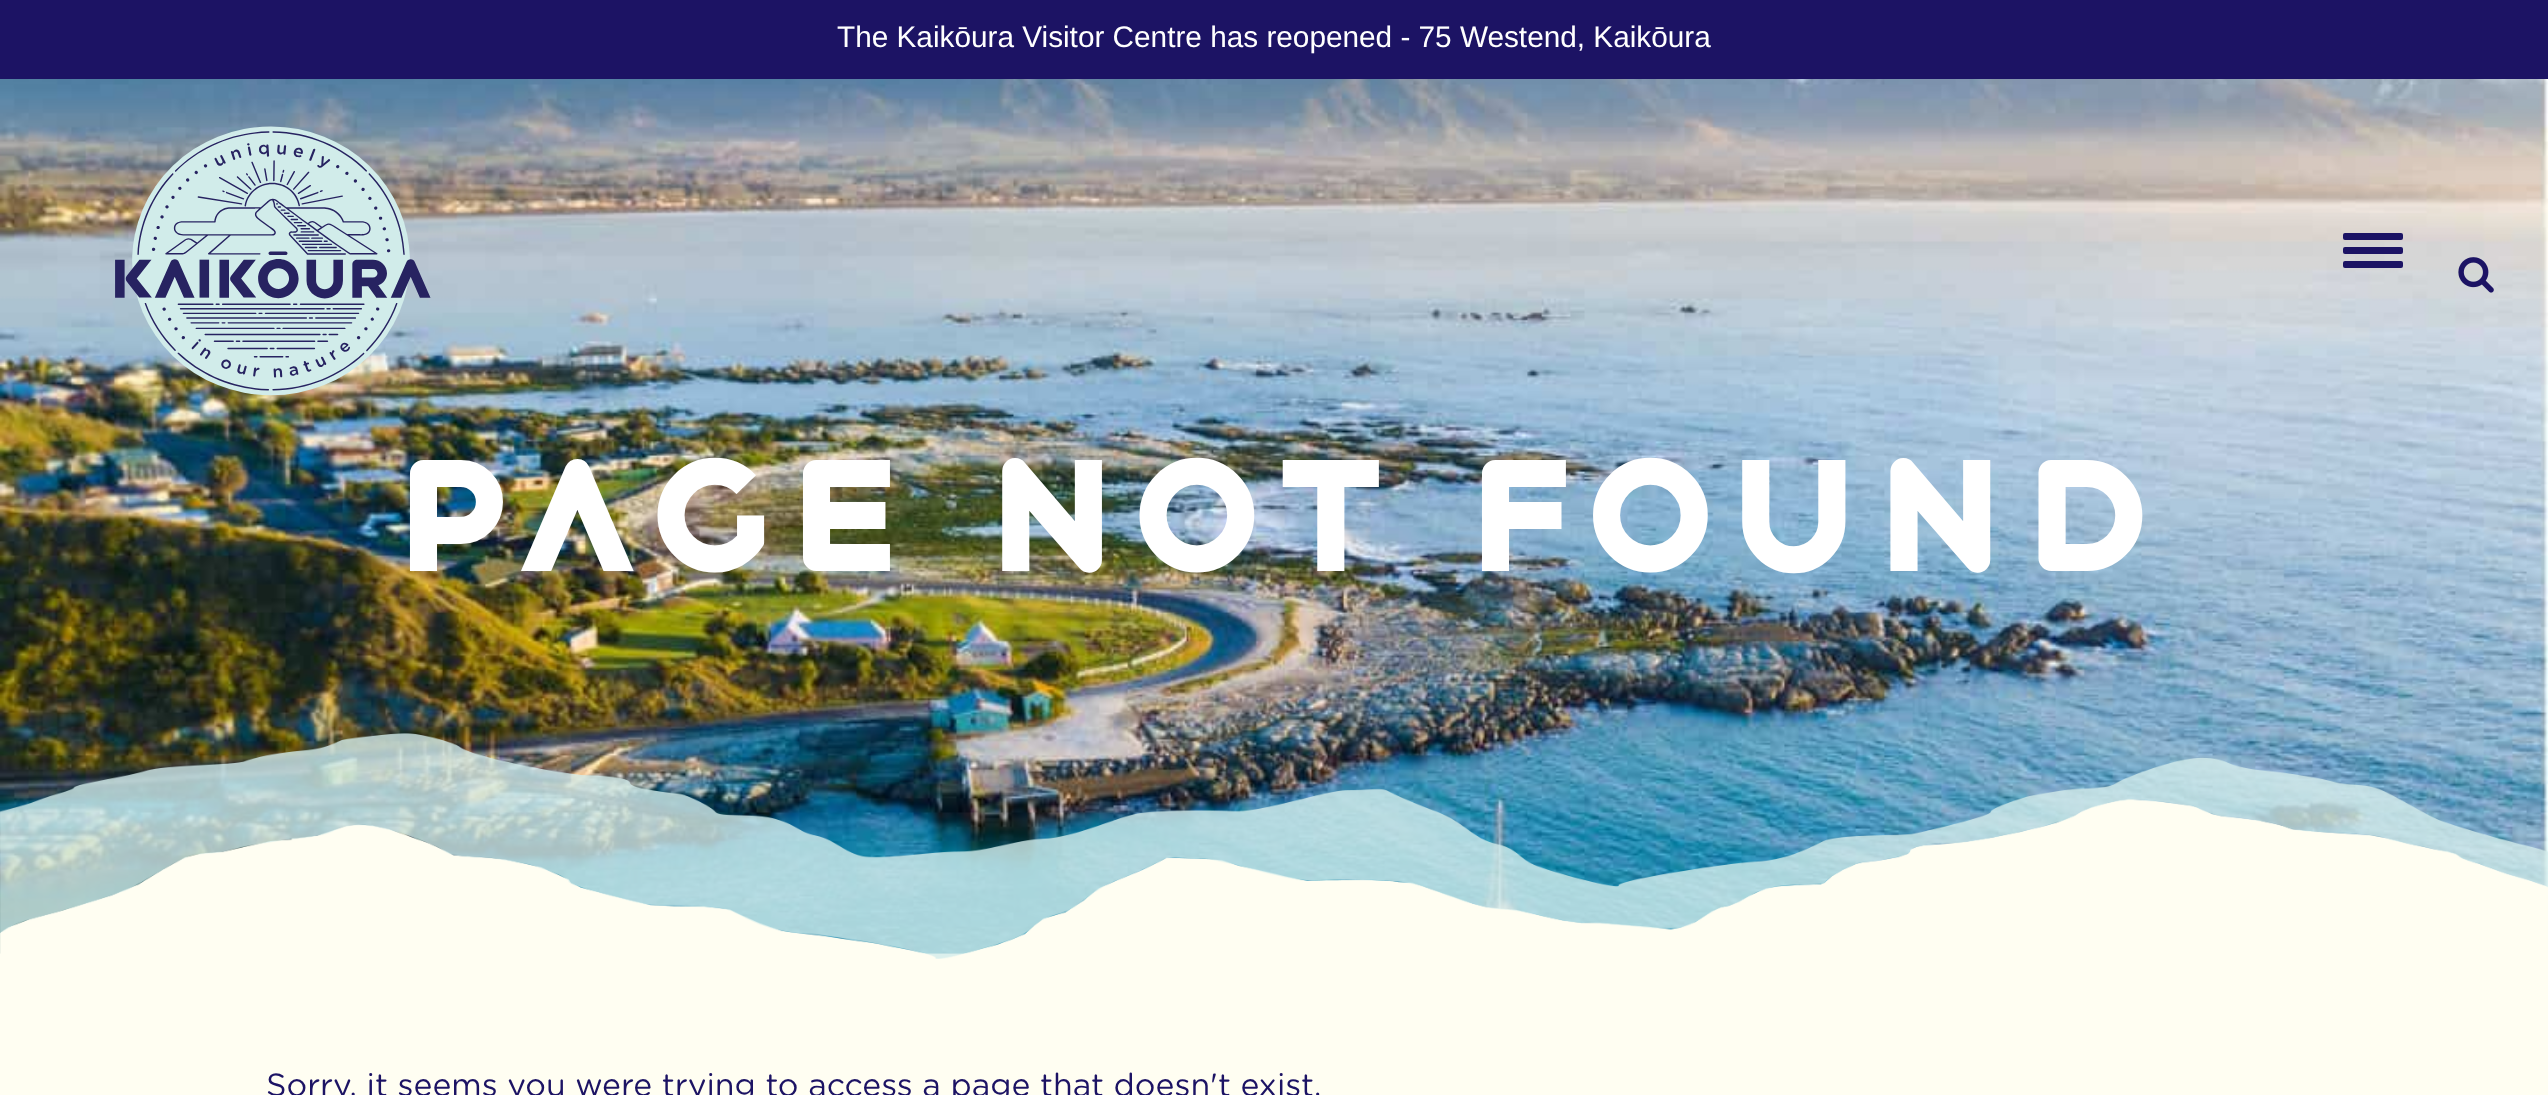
<svg xmlns="http://www.w3.org/2000/svg" width="2548" height="1095" viewBox="0 0 2548 1095">
  <rect width="100%" height="100%" fill="#fffef2"/>
  <path d="M0 0h2548v79H0z" fill="#1c1364"/>
  <image x="0" y="79" width="2548" height="875" href="img/3.png"/>
  <image x="115" y="126" width="316" height="270" href="img/1.png"/>
  <rect x="2343" y="233" width="60" height="7" rx="2" fill="#1c1364"/>
  <rect x="2343" y="247" width="60" height="7" rx="2" fill="#1c1364"/>
  <rect x="2343" y="261" width="60" height="7" rx="2" fill="#1c1364"/>
  <image x="2458" y="257" width="36" height="36" href="img/2.png"/>
  <image x="0" y="733" width="2548" height="226" href="img/4.png"/>
  <text x="837" y="47" font-family="Liberation Sans" font-size="29.75" fill="#fff">The Kaikōura Visitor Centre has reopened - 75 Westend, Kaikōura</text>
  <text x="386" y="571" font-family="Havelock" font-size="160" fill="#fff">PAGE NOT FOUND</text>
  <text x="266" y="1096" font-family="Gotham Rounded" font-size="32" fill="#1c1364">Sorry, it seems you were trying to access a page that doesn't exist.</text>
</svg>
